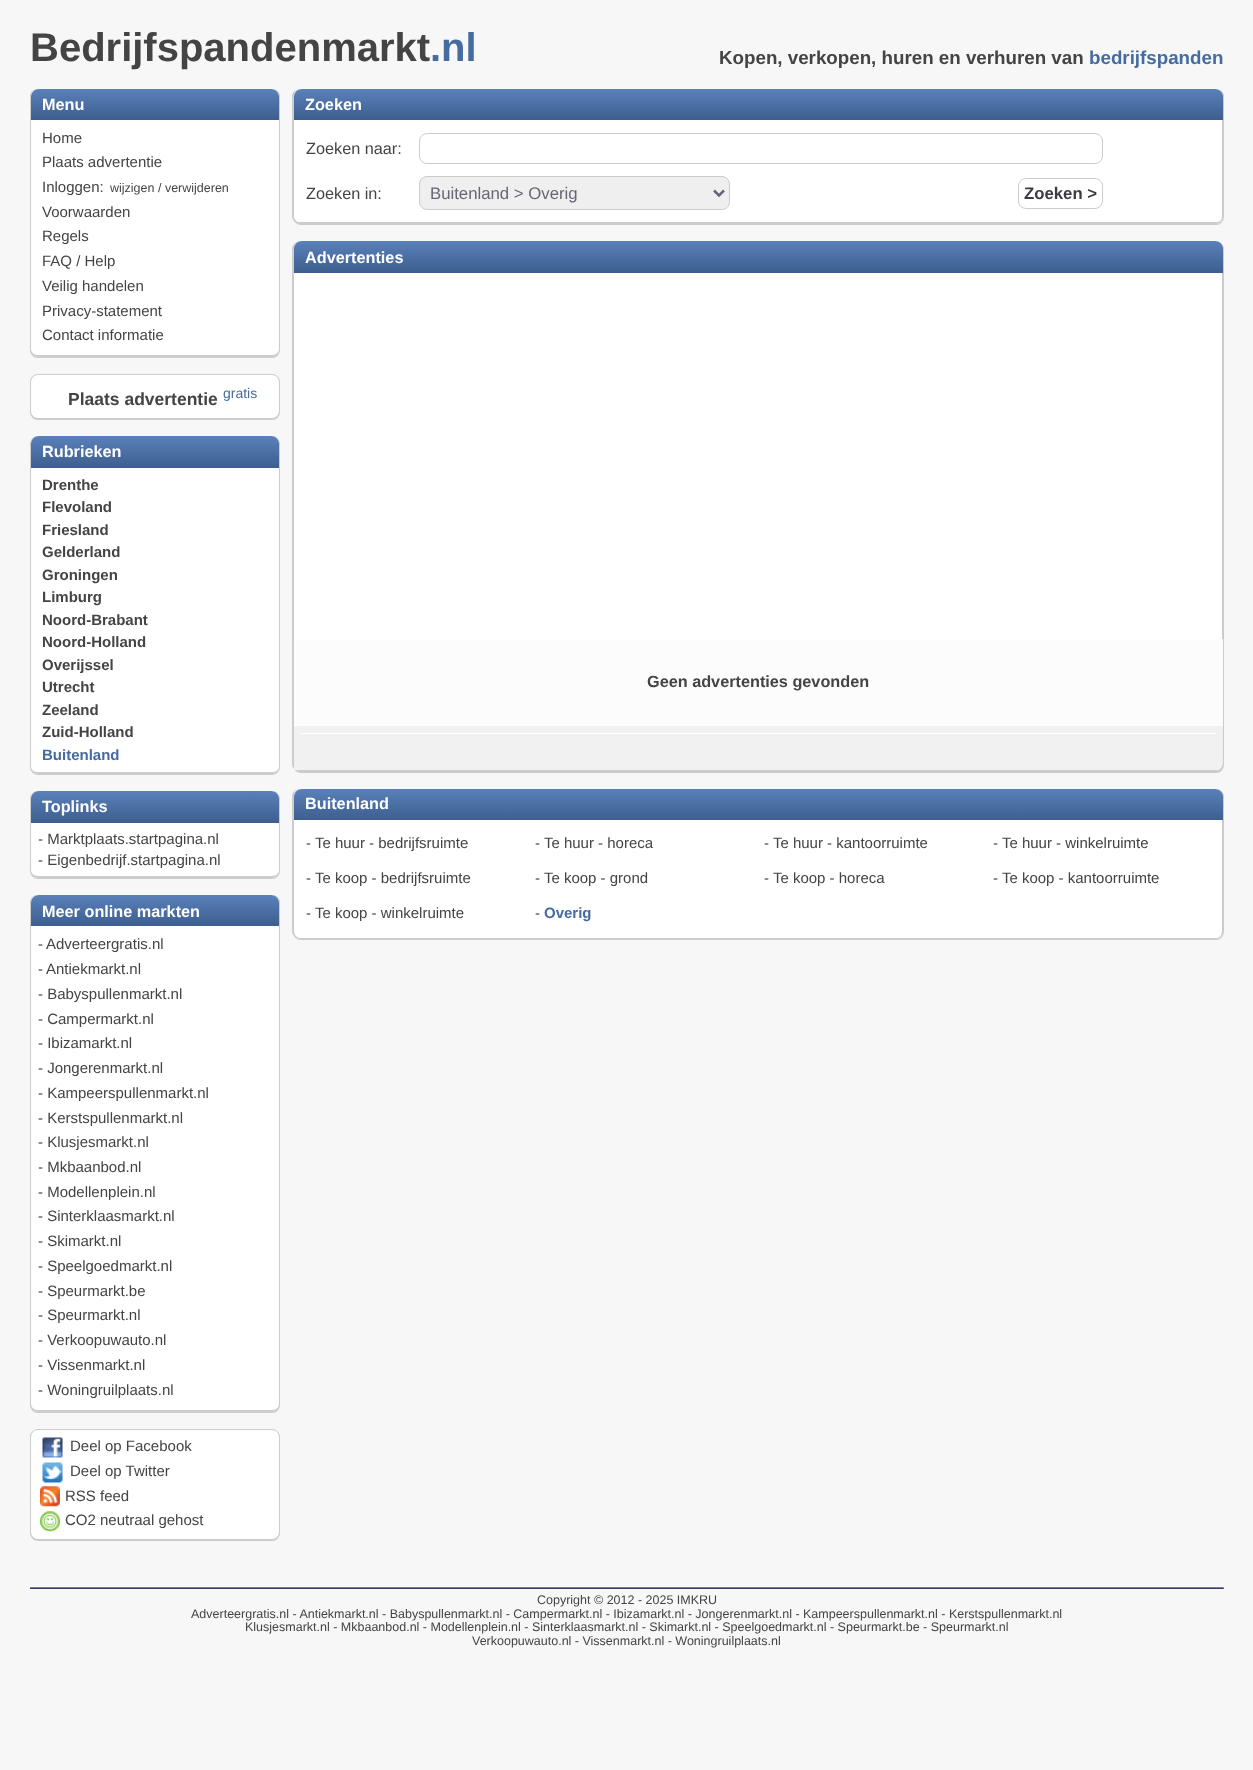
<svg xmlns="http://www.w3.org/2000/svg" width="1253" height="1770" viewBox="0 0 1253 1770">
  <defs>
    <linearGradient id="g1" gradientUnits="userSpaceOnUse" x1="155" y1="89" x2="155" y2="120"><stop offset="0" stop-color="#5a81ba"/><stop offset="1" stop-color="#3d5e8f"/></linearGradient>
    <linearGradient id="g2" gradientUnits="userSpaceOnUse" x1="155" y1="436" x2="155" y2="468"><stop offset="0" stop-color="#5a81ba"/><stop offset="1" stop-color="#3d5e8f"/></linearGradient>
    <linearGradient id="g3" gradientUnits="userSpaceOnUse" x1="155" y1="791" x2="155" y2="823"><stop offset="0" stop-color="#5a81ba"/><stop offset="1" stop-color="#3d5e8f"/></linearGradient>
    <linearGradient id="g4" gradientUnits="userSpaceOnUse" x1="155" y1="895" x2="155" y2="926"><stop offset="0" stop-color="#5a81ba"/><stop offset="1" stop-color="#3d5e8f"/></linearGradient>
    <linearGradient id="g5" gradientUnits="userSpaceOnUse" x1="758" y1="89" x2="758" y2="120"><stop offset="0" stop-color="#5a81ba"/><stop offset="1" stop-color="#3d5e8f"/></linearGradient>
    <linearGradient id="g6" gradientUnits="userSpaceOnUse" x1="758" y1="241" x2="758" y2="273"><stop offset="0" stop-color="#5a81ba"/><stop offset="1" stop-color="#3d5e8f"/></linearGradient>
    <linearGradient id="g7" gradientUnits="userSpaceOnUse" x1="758" y1="789" x2="758" y2="820"><stop offset="0" stop-color="#5a81ba"/><stop offset="1" stop-color="#3d5e8f"/></linearGradient>
  </defs>
  <rect width="100%" height="100%" fill="#f7f7f7"/>
  <rect x="30" y="90" width="250" height="268" rx="8" fill="#ccc" filter="blur(0.5px)"/>
  <rect x="30" y="89" width="250" height="267" rx="8" fill="#fff"/>
  <path d="M38 89H272C277 89 280 92 280 96V349C280 353 277 356 272 356H38C33 356 30 353 30 349V96C30 92 33 89 38 89ZM38 89H272C276 89 279 92 279 96V349C279 352 276 355 272 355H38C34 355 31 352 31 349V96C31 92 34 89 38 89Z" fill="#ccc" fill-rule="evenodd"/>
  <path d="M39 89H271C275.5 89 279 92.5 279 97V120H31V97C31 92.5 34.5 89 39 89Z" fill="url(#g1)"/>
  <rect x="30" y="375" width="250" height="45" rx="8" fill="#ccc" filter="blur(0.5px)"/>
  <rect x="30.5" y="374.5" width="249" height="44" rx="7.5" fill="#fff" stroke="#ccc"/>
  <rect x="30" y="438" width="250" height="337" rx="8" fill="#ccc" filter="blur(0.5px)"/>
  <rect x="30" y="436" width="250" height="338" rx="8" fill="#fff"/>
  <path d="M38 436H272C277 436 280 440 280 444V766C280 770 277 774 272 774H38C33 774 30 770 30 766V444C30 440 33 436 38 436ZM38 436H272C276 436 279 440 279 444V766C279 770 276 772 272 772H38C34 772 31 770 31 766V444C31 440 34 436 38 436Z" fill="#ccc" fill-rule="evenodd"/>
  <path d="M39 436H271C275.5 436 279 439.5 279 444V468H31V444C31 439.5 34.5 436 39 436Z" fill="url(#g2)"/>
  <rect x="30" y="793" width="250" height="86" rx="8" fill="#ccc" filter="blur(0.5px)"/>
  <rect x="30" y="791" width="250" height="87" rx="8" fill="#fff"/>
  <path d="M38 791H272C277 791 280 795 280 799V870C280 874 277 878 272 878H38C33 878 30 874 30 870V799C30 795 33 791 38 791ZM38 791H272C276 791 279 795 279 799V870C279 873 276 876 272 876H38C34 876 31 873 31 870V799C31 795 34 791 38 791Z" fill="#ccc" fill-rule="evenodd"/>
  <path d="M39 791H271C275.5 791 279 794.5 279 799V823H31V799C31 794.5 34.5 791 39 791Z" fill="url(#g3)"/>
  <rect x="30" y="896" width="250" height="517" rx="8" fill="#ccc" filter="blur(0.5px)"/>
  <rect x="30" y="895" width="250" height="516" rx="8" fill="#fff"/>
  <path d="M38 895H272C277 895 280 898 280 902V1404C280 1408 277 1411 272 1411H38C33 1411 30 1408 30 1404V902C30 898 33 895 38 895ZM38 895H272C276 895 279 898 279 902V1404C279 1407 276 1410 272 1410H38C34 1410 31 1407 31 1404V902C31 898 34 895 38 895Z" fill="#ccc" fill-rule="evenodd"/>
  <path d="M39 895H271C275.5 895 279 898.5 279 903V926H31V903C31 898.5 34.5 895 39 895Z" fill="url(#g4)"/>
  <rect x="30" y="1430" width="250" height="111" rx="8" fill="#ccc" filter="blur(0.5px)"/>
  <rect x="30.5" y="1429.5" width="249" height="110" rx="7.5" fill="#fff" stroke="#ccc"/>
  <image x="42" y="1437" width="21" height="21" href="img/1.png"/>
  <image x="42" y="1462" width="21" height="21" href="img/2.png"/>
  <image x="40" y="1486" width="20" height="21" href="img/3.png"/>
  <image x="40" y="1511" width="20" height="21" href="img/4.png"/>
  <rect x="293" y="90" width="931" height="135" rx="8" fill="#ccc" filter="blur(0.5px)"/>
  <rect x="293" y="89" width="931" height="135" rx="8" fill="#fff"/>
  <path d="M300 89H1216C1220 89 1224 92 1224 96V216C1224 220 1220 224 1216 224H300C296 224 292 220 292 216V96C292 92 296 89 300 89ZM300 89H1216C1220 89 1222 92 1222 96V216C1222 220 1220 222 1216 222H300C297 222 294 220 294 216V96C294 92 297 89 300 89Z" fill="#ccc" fill-rule="evenodd"/>
  <path d="M302 89H1215C1219.5 89 1223 92.5 1223 97V120H294V97C294 92.5 297.5 89 302 89Z" fill="url(#g5)"/>
  <rect x="419.5" y="133.5" width="683" height="30" rx="7.5" fill="none" stroke="#ccc"/>
  <rect x="419.5" y="176.5" width="310" height="33" rx="7.5" fill="#efefef" stroke="#ccc"/>
  <path d="M714 190.5L719 195.5L724 190.5" fill="none" stroke="#667" stroke-width="2.5"/>
  <rect x="1018.5" y="178.5" width="84" height="30" rx="7.5" fill="none" stroke="#ccc"/>
  <rect x="293" y="243" width="931" height="530" rx="8" fill="#ccc" filter="blur(0.5px)"/>
  <rect x="293" y="241" width="931" height="530" rx="8" fill="#fff"/>
  <path d="M300 241H1216C1220 241 1224 245 1224 249V764C1224 768 1220 771 1216 771H300C296 771 292 768 292 764V249C292 245 296 241 300 241ZM300 241H1216C1220 241 1222 245 1222 249V764C1222 767 1220 770 1216 770H300C297 770 294 767 294 764V249C294 245 297 241 300 241Z" fill="#ccc" fill-rule="evenodd"/>
  <path d="M302 241H1215C1219.5 241 1223 244.5 1223 249V273H294V249C294 244.5 297.5 241 302 241Z" fill="url(#g6)"/>
  <path d="M294 640h929v85H294z" fill="#fcfcfc"/>
  <path d="M1222 639h1v1H1222z" fill="#fefefe"/>
  <path d="M294 725H1223V762C1223 766.5 1219.5 770 1215 770H294Z" fill="#f1f1f1"/>
  <path d="M294 725h929v1H294z" fill="#fff"/>
  <path d="M300 733h916v1H300z" fill="#fff"/>
  <rect x="293" y="790" width="931" height="150" rx="8" fill="#ccc" filter="blur(0.5px)"/>
  <rect x="293" y="789" width="931" height="150" rx="8" fill="#fff"/>
  <path d="M300 789H1216C1220 789 1224 792 1224 796V931C1224 935 1220 939 1216 939H300C296 939 292 935 292 931V796C292 792 296 789 300 789ZM300 789H1216C1220 789 1222 792 1222 796V931C1222 935 1220 938 1216 938H300C297 938 294 935 294 931V796C294 792 297 789 300 789Z" fill="#ccc" fill-rule="evenodd"/>
  <path d="M302 789H1215C1219.5 789 1223 792.5 1223 797V820H294V797C294 792.5 297.5 789 302 789Z" fill="url(#g7)"/>
  <image x="30" y="1587" width="1194" height="2" href="img/5.png"/>
  <text x="30" y="61" font-family="Liberation Sans" font-size="40" font-weight="bold" fill="#444">Bedrijfspandenmarkt</text>
  <text x="430" y="61" font-family="Liberation Sans" font-size="40" font-weight="bold" fill="#456ba0">.nl</text>
  <text x="719" y="64" font-family="Liberation Sans" font-size="18.75" font-weight="bold" fill="#444">Kopen, verkopen, huren en verhuren van</text>
  <text x="1089" y="64" font-family="Liberation Sans" font-size="18.75" font-weight="bold" fill="#456ba0">bedrijfspanden</text>
  <text x="42" y="110" font-family="Liberation Sans" font-size="16.25" font-weight="bold" fill="#fff">Menu</text>
  <g font-family="Liberation Sans" font-size="15" fill="#444">
    <text x="42" y="143">Home</text>
    <text x="42" y="167">Plaats advertentie</text>
    <text x="42" y="192">Inloggen:</text>
  </g>
  <text x="110" y="192" font-family="Liberation Sans" font-size="12.5" fill="#444">wijzigen / verwijderen</text>
  <g font-family="Liberation Sans" font-size="15" fill="#444">
    <text x="42" y="217">Voorwaarden</text>
    <text x="42" y="241">Regels</text>
    <text x="42" y="266">FAQ / Help</text>
    <text x="42" y="291">Veilig handelen</text>
    <text x="42" y="316">Privacy-statement</text>
    <text x="42" y="340">Contact informatie</text>
  </g>
  <text x="68" y="405" font-family="Liberation Sans" font-size="17.5" font-weight="bold" fill="#444">Plaats advertentie</text>
  <text x="223" y="398" font-family="Liberation Sans" font-size="14" fill="#456ba0">gratis</text>
  <text x="42" y="457" font-family="Liberation Sans" font-size="16.25" font-weight="bold" fill="#fff">Rubrieken</text>
  <g font-family="Liberation Sans" font-size="15" font-weight="bold" fill="#444">
    <text x="42" y="490">Drenthe</text>
    <text x="42" y="512">Flevoland</text>
    <text x="42" y="535">Friesland</text>
    <text x="42" y="557">Gelderland</text>
    <text x="42" y="580">Groningen</text>
    <text x="42" y="602">Limburg</text>
    <text x="42" y="625">Noord-Brabant</text>
    <text x="42" y="647">Noord-Holland</text>
    <text x="42" y="670">Overijssel</text>
    <text x="42" y="692">Utrecht</text>
    <text x="42" y="715">Zeeland</text>
    <text x="42" y="737">Zuid-Holland</text>
  </g>
  <text x="42" y="760" font-family="Liberation Sans" font-size="15" font-weight="bold" fill="#456ba0">Buitenland</text>
  <text x="42" y="812" font-family="Liberation Sans" font-size="16.25" font-weight="bold" fill="#fff">Toplinks</text>
  <g font-family="Liberation Sans" font-size="15" fill="#444">
    <text x="38" y="844">- Marktplaats.startpagina.nl</text>
    <text x="38" y="865">- Eigenbedrijf.startpagina.nl</text>
  </g>
  <text x="42" y="917" font-family="Liberation Sans" font-size="16.25" font-weight="bold" fill="#fff">Meer online markten</text>
  <g font-family="Liberation Sans" font-size="15" fill="#444">
    <text x="38" y="949">-</text>
    <text x="46" y="949">Adverteergratis.nl</text>
    <text x="38" y="974">-</text>
    <text x="46" y="974">Antiekmarkt.nl</text>
    <text x="38" y="999">- Babyspullenmarkt.nl</text>
    <text x="38" y="1024">- Campermarkt.nl</text>
    <text x="38" y="1048">- Ibizamarkt.nl</text>
    <text x="38" y="1073">- Jongerenmarkt.nl</text>
    <text x="38" y="1098">- Kampeerspullenmarkt.nl</text>
    <text x="38" y="1123">- Kerstspullenmarkt.nl</text>
    <text x="38" y="1147">- Klusjesmarkt.nl</text>
    <text x="38" y="1172">- Mkbaanbod.nl</text>
    <text x="38" y="1197">- Modellenplein.nl</text>
    <text x="38" y="1221">- Sinterklaasmarkt.nl</text>
    <text x="38" y="1246">- Skimarkt.nl</text>
    <text x="38" y="1271">- Speelgoedmarkt.nl</text>
    <text x="38" y="1296">- Speurmarkt.be</text>
    <text x="38" y="1320">- Speurmarkt.nl</text>
    <text x="38" y="1345">- Verkoopuwauto.nl</text>
    <text x="38" y="1370">- Vissenmarkt.nl</text>
    <text x="38" y="1395">- Woningruilplaats.nl</text>
    <text x="70" y="1451">Deel op Facebook</text>
    <text x="70" y="1476">Deel op Twitter</text>
    <text x="65" y="1501">RSS feed</text>
    <text x="65" y="1525">CO2 neutraal gehost</text>
  </g>
  <text x="305" y="110" font-family="Liberation Sans" font-size="16.25" font-weight="bold" fill="#fff">Zoeken</text>
  <g font-family="Liberation Sans" font-size="16.25" fill="#444">
    <text x="306" y="154">Zoeken naar:</text>
    <text x="306" y="199">Zoeken in:</text>
  </g>
  <text x="430" y="199" font-family="Liberation Sans" font-size="16.75" fill="#667">Buitenland &gt; Overig</text>
  <text x="1024" y="199" font-family="Liberation Sans" font-size="16.75" font-weight="bold" fill="#3c3c46">Zoeken &gt;</text>
  <text x="305" y="263" font-family="Liberation Sans" font-size="16.25" font-weight="bold" fill="#fff">Advertenties</text>
  <text x="647" y="687" font-family="Liberation Sans" font-size="16.25" font-weight="bold" fill="#444">Geen advertenties gevonden</text>
  <text x="305" y="809" font-family="Liberation Sans" font-size="16.25" font-weight="bold" fill="#fff">Buitenland</text>
  <g font-family="Liberation Sans" font-size="15" fill="#444">
    <text x="306" y="848">- Te huur - bedrijfsruimte</text>
    <text x="535" y="848">- Te huur - horeca</text>
    <text x="764" y="848">- Te huur - kantoorruimte</text>
    <text x="993" y="848">- Te huur - winkelruimte</text>
    <text x="306" y="883">- Te koop - bedrijfsruimte</text>
    <text x="535" y="883">- Te koop - grond</text>
    <text x="764" y="883">- Te koop - horeca</text>
    <text x="993" y="883">- Te koop - kantoorruimte</text>
    <text x="306" y="918">- Te koop - winkelruimte</text>
    <text x="535" y="918">-</text>
  </g>
  <text x="544" y="918" font-family="Liberation Sans" font-size="15" font-weight="bold" fill="#456ba0">Overig</text>
  <g font-family="Liberation Sans" font-size="12.5" fill="#444">
    <text x="537" y="1604">Copyright © 2012 - 2025 IMKRU</text>
    <text x="191" y="1618">Adverteergratis.nl - Antiekmarkt.nl - Babyspullenmarkt.nl - Campermarkt.nl - Ibizamarkt.nl - Jongerenmarkt.nl - Kampeerspullenmarkt.nl - Kerstspullenmarkt.nl</text>
    <text x="245" y="1631">Klusjesmarkt.nl - Mkbaanbod.nl - Modellenplein.nl - Sinterklaasmarkt.nl - Skimarkt.nl - Speelgoedmarkt.nl - Speurmarkt.be - Speurmarkt.nl</text>
    <text x="472" y="1645">Verkoopuwauto.nl - Vissenmarkt.nl - Woningruilplaats.nl</text>
  </g>
</svg>
